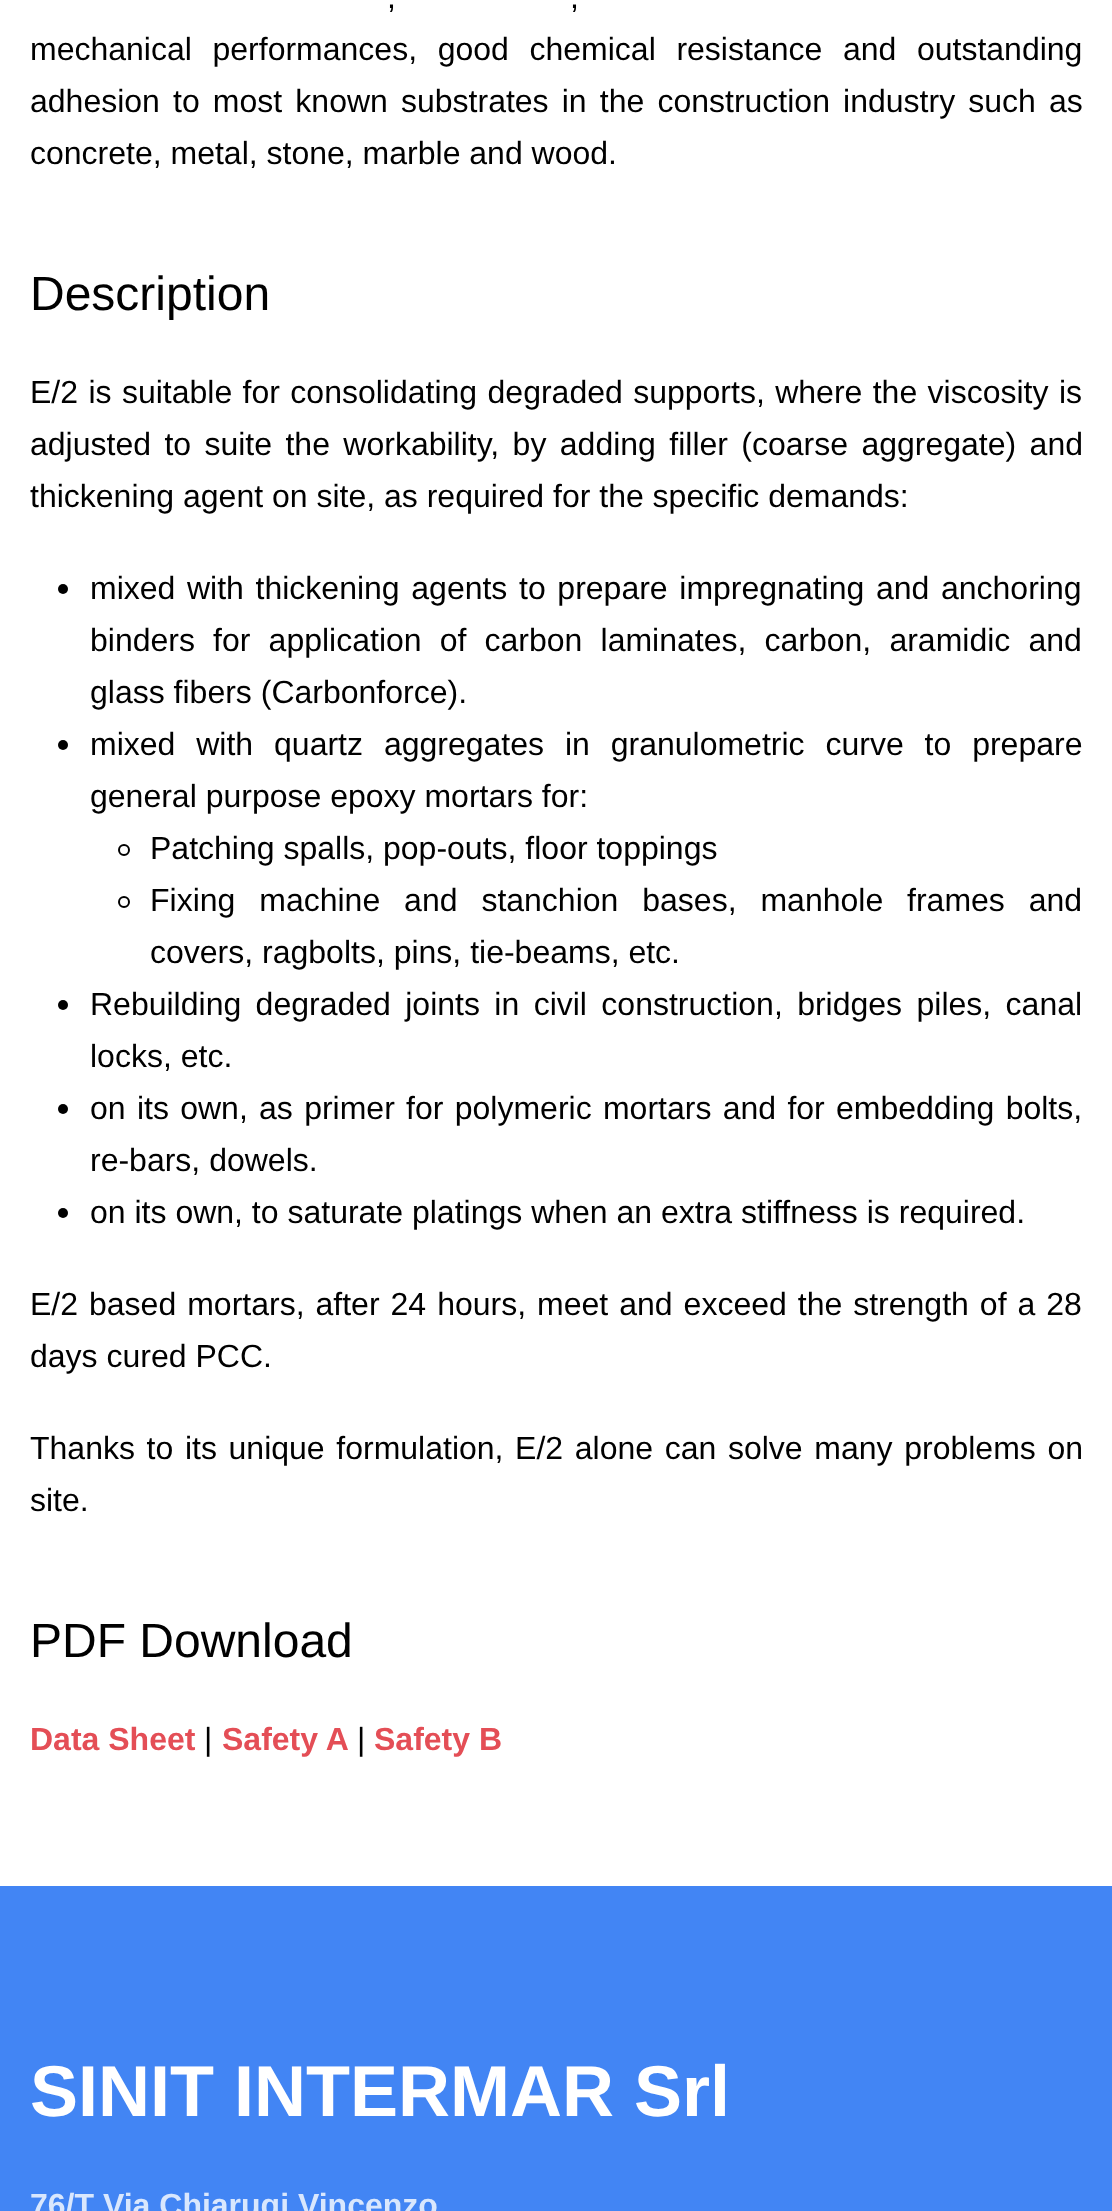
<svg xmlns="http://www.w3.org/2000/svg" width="1112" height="2211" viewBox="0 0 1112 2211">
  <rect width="100%" height="100%" fill="#fff"/>
  <circle cx="63" cy="589" r="5" fill="#000"/>
  <circle cx="63" cy="745" r="5" fill="#000"/>
  <circle cx="124" cy="850" r="5" fill="none" stroke="#000" stroke-width="2"/>
  <circle cx="124" cy="902" r="5" fill="none" stroke="#000" stroke-width="2"/>
  <circle cx="63" cy="1005" r="5" fill="#000"/>
  <circle cx="63" cy="1109" r="5" fill="#000"/>
  <circle cx="63" cy="1213" r="5" fill="#000"/>
  <path d="M0 1886h1112v325H0z" fill="#4285f4"/>
  <g font-family="Liberation Sans" font-size="32" fill="#000">
    <text x="387" y="8" word-spacing="7">,</text>
    <text x="570" y="8" word-spacing="7">,</text>
    <text x="30" y="60" word-spacing="11.75">mechanical performances, good chemical resistance and outstanding</text>
    <text x="30" y="112" word-spacing="4.25">adhesion to most known substrates in the construction industry such as</text>
    <text x="30" y="164">concrete, metal, stone, marble and wood.</text>
  </g>
  <text x="30" y="310" font-family="Liberation Sans" font-size="48" fill="#000">Description</text>
  <g font-family="Liberation Sans" font-size="32" fill="#000">
    <text x="30" y="403" word-spacing="1.5">E/2 is suitable for consolidating degraded supports, where the viscosity is</text>
    <text x="30" y="455" word-spacing="4.5">adjusted to suite the workability, by adding filler (coarse aggregate) and</text>
    <text x="30" y="507">thickening agent on site, as required for the specific demands:</text>
    <text x="90" y="599" word-spacing="2.75">mixed with thickening agents to prepare impregnating and anchoring</text>
    <text x="90" y="651" word-spacing="9.25">binders for application of carbon laminates, carbon, aramidic and</text>
    <text x="90" y="703">glass fibers (Carbonforce).</text>
    <text x="90" y="755" word-spacing="12">mixed with quartz aggregates in granulometric curve to prepare</text>
    <text x="90" y="807">general purpose epoxy mortars for:</text>
    <text x="150" y="859">Patching spalls, pop-outs, floor toppings</text>
    <text x="150" y="911" word-spacing="15">Fixing machine and stanchion bases, manhole frames and</text>
    <text x="150" y="963">covers, ragbolts, pins, tie-beams, etc.</text>
    <text x="90" y="1015" word-spacing="5.5">Rebuilding degraded joints in civil construction, bridges piles, canal</text>
    <text x="90" y="1067">locks, etc.</text>
    <text x="90" y="1119" word-spacing="2.4">on its own, as primer for polymeric mortars and for embedding bolts,</text>
    <text x="90" y="1171">re-bars, dowels.</text>
    <text x="90" y="1223">on its own, to saturate platings when an extra stiffness is required.</text>
    <text x="30" y="1315" word-spacing="2.1">E/2 based mortars, after 24 hours, meet and exceed the strength of a 28</text>
    <text x="30" y="1367">days cured PCC.</text>
    <text x="30" y="1459" word-spacing="2.75">Thanks to its unique formulation, E/2 alone can solve many problems on</text>
    <text x="30" y="1511">site.</text>
  </g>
  <text x="30" y="1657" font-family="Liberation Sans" font-size="48" fill="#000">PDF Download</text>
  <text x="30" y="1750" font-family="Liberation Sans" font-size="32" font-weight="bold" fill="#e44e56">Data Sheet</text>
  <text x="204" y="1750" font-family="Liberation Sans" font-size="32" fill="#000">|</text>
  <text x="222" y="1750" font-family="Liberation Sans" font-size="32" font-weight="bold" fill="#e44e56">Safety A</text>
  <text x="357" y="1750" font-family="Liberation Sans" font-size="32" fill="#000">|</text>
  <text x="374" y="1750" font-family="Liberation Sans" font-size="32" font-weight="bold" fill="#e44e56">Safety B</text>
  <text x="30" y="2116" font-family="Liberation Sans" font-size="72" font-weight="bold" fill="#fff">SINIT INTERMAR Srl</text>
  <text x="30" y="2216" font-family="Liberation Sans" font-size="32" font-weight="bold" fill="#d9e7fd">76/T Via Chiarugi Vincenzo</text>
</svg>
